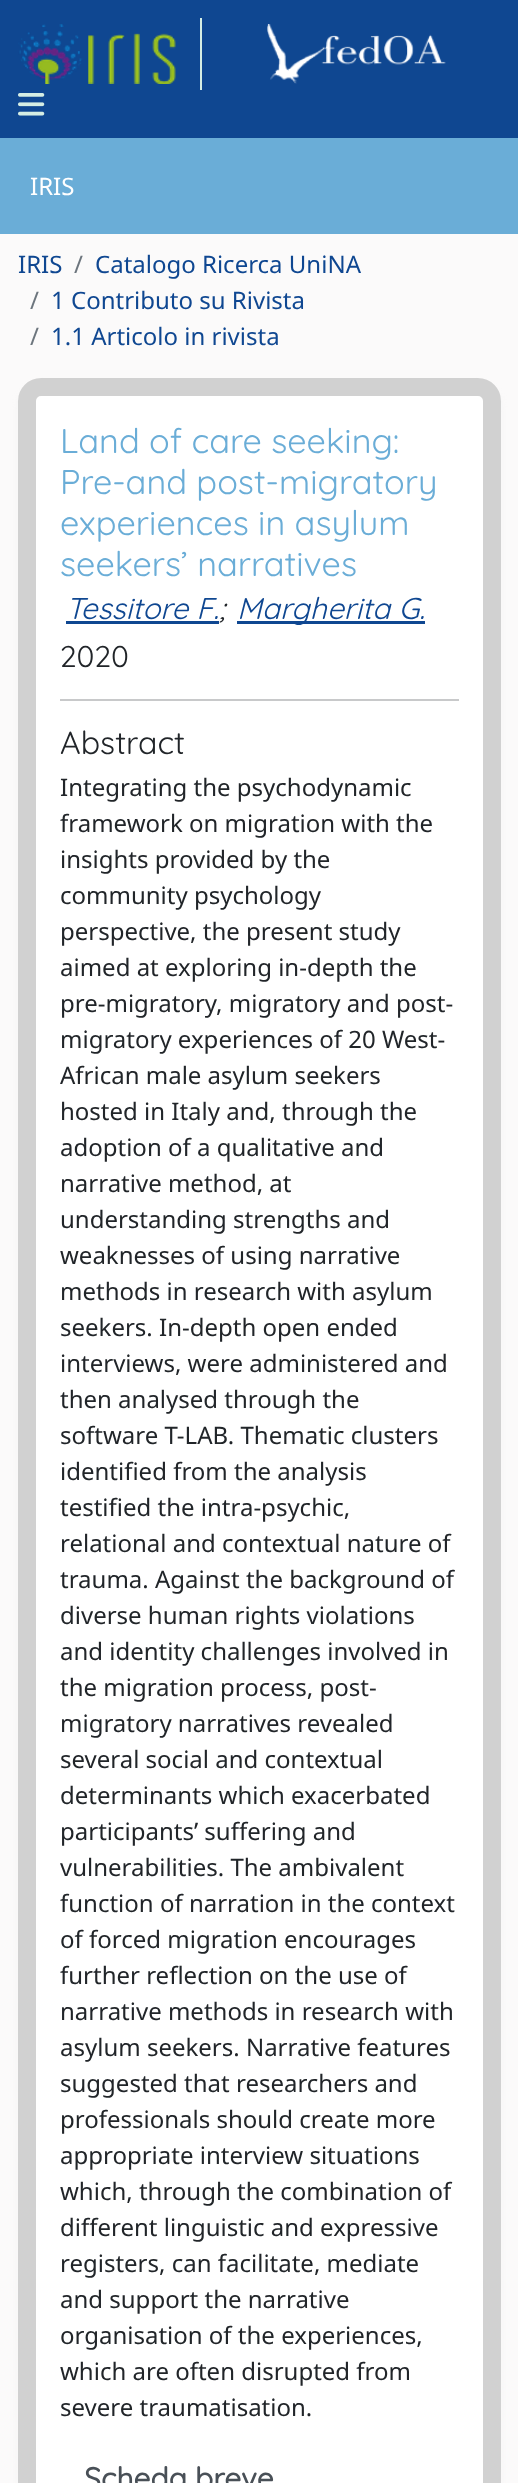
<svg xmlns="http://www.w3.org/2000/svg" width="518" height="2483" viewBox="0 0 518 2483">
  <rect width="100%" height="100%" fill="#fbfafa"/>
  <path d="M0 0h518v138H0z" fill="#0f4791"/>
  <path d="M200 18h2v72H200z" fill="#d5eee4"/>
  <image x="18" y="24" width="158" height="60" href="img/1.png"/>
  <image x="267" y="24" width="179" height="60" href="img/2.png"/>
  <image x="18" y="93" width="27" height="23" href="img/3.png"/>
  <path d="M0 138h518v96H0z" fill="#6aadd7"/>
  <rect x="21" y="387" width="477" height="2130" rx="20" fill="#eee" filter="blur(4.5px)"/>
  <rect x="18" y="378" width="483" height="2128" rx="23" fill="#fff"/>
  <rect x="27" y="387" width="465" height="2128" rx="14" fill="none" stroke="#0000002e" stroke-width="18"/>
  <path d="M66 621h153v3H66z" fill="#0f4791"/>
  <path d="M237 621h188v3H237z" fill="#0f4791"/>
  <path d="M60 699h399v2H60z" fill="#c8c9ca"/>
  <text x="30" y="195" font-family="Noto Sans" font-size="24" fill="#fff">IRIS</text>
  <text x="18" y="273" font-family="Noto Sans" font-size="24" fill="#0f4791">IRIS</text>
  <text x="74" y="273" font-family="Noto Sans" font-size="24" fill="#6c757d">/</text>
  <text x="95" y="273" font-family="Noto Sans" font-size="24" fill="#0f4791">Catalogo Ricerca UniNA</text>
  <text x="30" y="309" font-family="Noto Sans" font-size="24" fill="#6c757d">/</text>
  <text x="51" y="309" font-family="Noto Sans" font-size="24" fill="#0f4791">1 Contributo su Rivista</text>
  <text x="30" y="345" font-family="Noto Sans" font-size="24" fill="#6c757d">/</text>
  <text x="51" y="345" font-family="Noto Sans" font-size="24" fill="#0f4791">1.1 Articolo in rivista</text>
  <g font-family="Quicksand" font-size="34.25" fill="#6aadd7">
    <text x="60" y="453">Land of care seeking:</text>
    <text x="60" y="494">Pre-and post-migratory</text>
    <text x="60" y="535">experiences in asylum</text>
    <text x="60" y="576">seekers’ narratives</text>
  </g>
  <text x="66" y="619" font-family="Quicksand" font-size="30" font-style="italic" fill="#0f4791">Tessitore F.</text>
  <text x="219" y="619" font-family="Quicksand" font-size="30" font-style="italic" fill="#212529">;</text>
  <text x="237" y="619" font-family="Quicksand" font-size="30" font-style="italic" fill="#0f4791">Margherita G.</text>
  <text x="60" y="667" font-family="Quicksand" font-size="30" fill="#212529">2020</text>
  <text x="60" y="754" font-family="Quicksand" font-size="32" fill="#212529">Abstract</text>
  <g font-family="Noto Sans" font-size="24" fill="#212529">
    <text x="60" y="796">Integrating the psychodynamic</text>
    <text x="60" y="832">framework on migration with the</text>
    <text x="60" y="868">insights provided by the</text>
    <text x="60" y="904">community psychology</text>
    <text x="60" y="940">perspective, the present study</text>
    <text x="60" y="976">aimed at exploring in-depth the</text>
    <text x="60" y="1012">pre-migratory, migratory and post-</text>
    <text x="60" y="1048">migratory experiences of 20 West-</text>
    <text x="60" y="1084">African male asylum seekers</text>
    <text x="60" y="1120">hosted in Italy and, through the</text>
    <text x="60" y="1156">adoption of a qualitative and</text>
    <text x="60" y="1192">narrative method, at</text>
    <text x="60" y="1228">understanding strengths and</text>
    <text x="60" y="1264">weaknesses of using narrative</text>
    <text x="60" y="1300">methods in research with asylum</text>
    <text x="60" y="1336">seekers. In-depth open ended</text>
    <text x="60" y="1372">interviews, were administered and</text>
    <text x="60" y="1408">then analysed through the</text>
    <text x="60" y="1444">software T-LAB. Thematic clusters</text>
    <text x="60" y="1480">identified from the analysis</text>
    <text x="60" y="1516">testified the intra-psychic,</text>
    <text x="60" y="1552">relational and contextual nature of</text>
    <text x="60" y="1588">trauma. Against the background of</text>
    <text x="60" y="1624">diverse human rights violations</text>
    <text x="60" y="1660">and identity challenges involved in</text>
    <text x="60" y="1696">the migration process, post-</text>
    <text x="60" y="1732">migratory narratives revealed</text>
    <text x="60" y="1768">several social and contextual</text>
    <text x="60" y="1804">determinants which exacerbated</text>
    <text x="60" y="1840">participants’ suffering and</text>
    <text x="60" y="1876">vulnerabilities. The ambivalent</text>
    <text x="60" y="1912">function of narration in the context</text>
    <text x="60" y="1948">of forced migration encourages</text>
    <text x="60" y="1984">further reflection on the use of</text>
    <text x="60" y="2020">narrative methods in research with</text>
    <text x="60" y="2056">asylum seekers. Narrative features</text>
    <text x="60" y="2092">suggested that researchers and</text>
    <text x="60" y="2128">professionals should create more</text>
    <text x="60" y="2164">appropriate interview situations</text>
    <text x="60" y="2200">which, through the combination of</text>
    <text x="60" y="2236">different linguistic and expressive</text>
    <text x="60" y="2272">registers, can facilitate, mediate</text>
    <text x="60" y="2308">and support the narrative</text>
    <text x="60" y="2344">organisation of the experiences,</text>
    <text x="60" y="2380">which are often disrupted from</text>
    <text x="60" y="2416">severe traumatisation.</text>
  </g>
  <text x="84" y="2489" font-family="Quicksand" font-size="30" font-weight="bold" fill="#495057">Scheda breve</text>
</svg>
